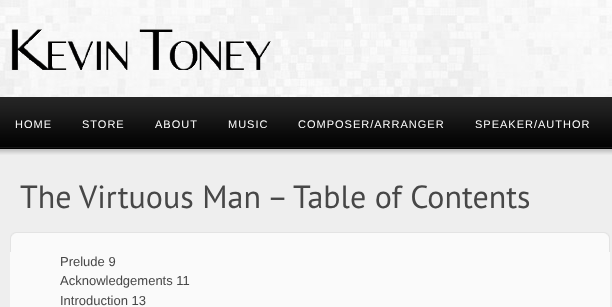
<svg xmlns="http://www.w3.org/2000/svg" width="612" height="307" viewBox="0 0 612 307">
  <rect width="100%" height="100%" fill="#fff"/>
  <image x="0" y="0" width="612" height="97" href="img/1.png"/>
  <image x="11" y="29" width="260" height="41" href="img/2.png"/>
  <path d="M0 149h612v158H0z" fill="#eee"/>
  <image x="0" y="97" width="612" height="58" href="img/3.png"/>
  <path d="M10 252h600v55H10z" fill="#fafafa"/>
  <image x="10" y="232" width="600" height="20" href="img/4.png"/>
  <g font-family="Liberation Sans" font-size="11" letter-spacing="1" fill="#fff">
    <text x="15" y="128">HOME</text>
    <text x="82" y="128">STORE</text>
    <text x="155" y="128">ABOUT</text>
    <text x="228" y="128">MUSIC</text>
    <text x="298" y="128">COMPOSER/ARRANGER</text>
    <text x="475" y="128">SPEAKER/AUTHOR</text>
  </g>
  <text x="20" y="208" font-family="PT Sans" font-size="32" fill="#474747">The Virtuous Man – Table of Contents</text>
  <g font-family="Liberation Sans" font-size="13" fill="#474747">
    <text x="60" y="266">Prelude 9</text>
    <text x="60" y="285">Acknowledgements 11</text>
    <text x="60" y="305">Introduction 13</text>
  </g>
</svg>
